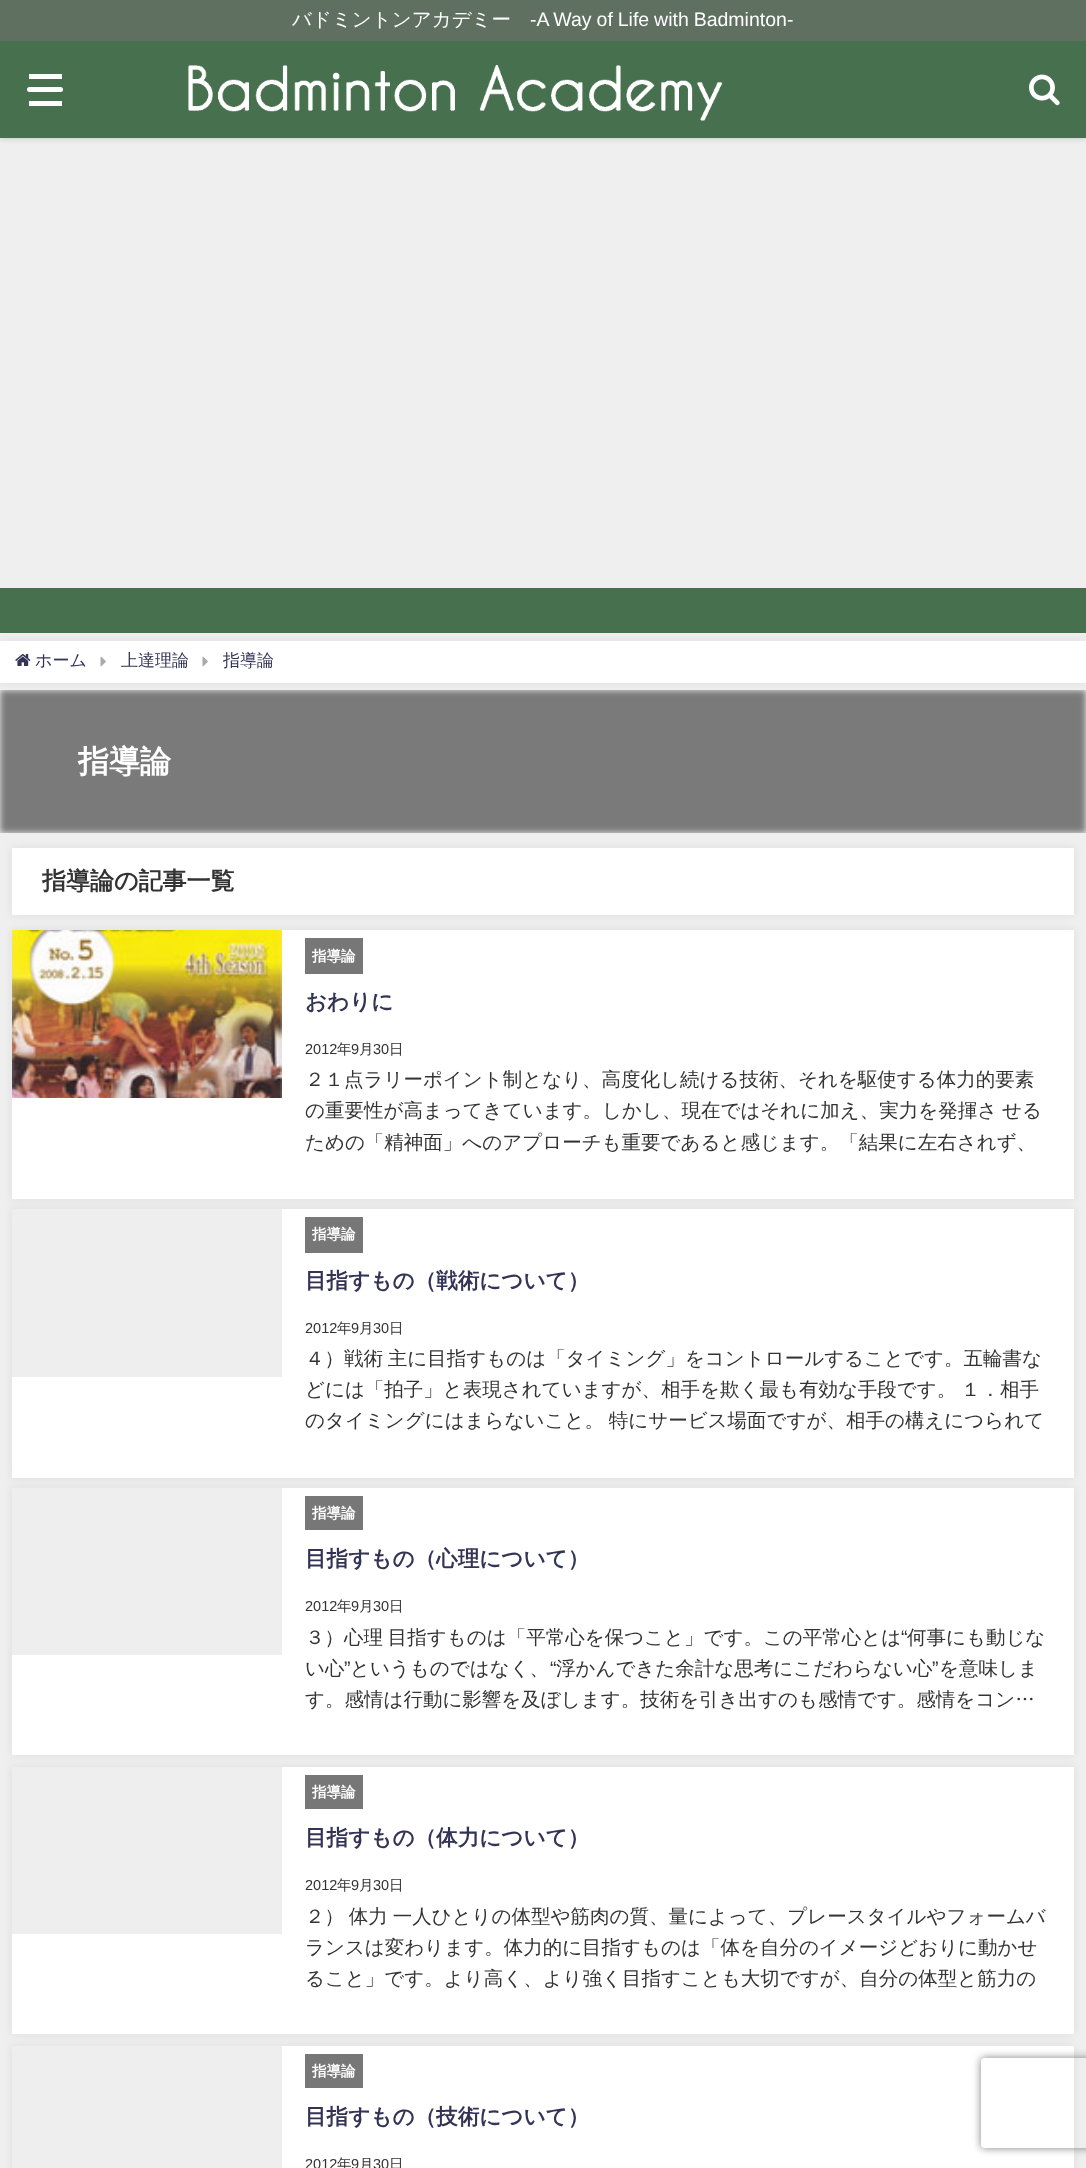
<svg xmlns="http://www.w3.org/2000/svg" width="1086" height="2168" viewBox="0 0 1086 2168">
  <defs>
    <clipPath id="clip1"><path d="M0 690h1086v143H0z"/></clipPath>
    <clipPath id="clip2"><path d="M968 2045H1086V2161H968ZM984 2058H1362C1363.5 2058 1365 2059.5 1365 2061V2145C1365 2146.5 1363.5 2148 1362 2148H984C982.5 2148 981 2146.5 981 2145V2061C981 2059.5 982.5 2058 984 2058Z" clip-rule="evenodd"/></clipPath>
  </defs>
  <rect width="100%" height="100%" fill="#efefef"/>
  <path d="M0 0h1086v138H0z" fill="#00000033" filter="blur(3px)"/>
  <path d="M0 41h1086v97H0z" fill="#47704e"/>
  <path d="M0 0h1086v41H0z" fill="#5f7060"/>
  <path d="M29 74h33v5H29z" fill="#fff"/>
  <rect x="27" y="87" width="36" height="5" rx="2.5" fill="#fff"/>
  <path d="M29 101h33v5H29z" fill="#fff"/>
  <image x="188" y="65" width="535" height="56" href="img/1.png"/>
  <image x="1029" y="74" width="31" height="32" href="img/2.png"/>
  <path d="M0 641h1086v42H0z" fill="#96969633" filter="blur(4px)"/>
  <path d="M0 588h1086v45H0z" fill="#47704e"/>
  <g clip-path="url(#clip1)">
    <path d="M0 690h1086v143H0z" fill="#7a7a7a" filter="blur(3px)"/>
  </g>
  <path d="M0 641h1086v42H0z" fill="#fff"/>
  <image x="15" y="654" width="16" height="12" href="img/3.png"/>
  <image x="100" y="656" width="6" height="11" href="img/4.png"/>
  <image x="202" y="656" width="6" height="11" href="img/4.png"/>
  <path d="M12 848h1062v67H12z" fill="#96969633" filter="blur(4px)"/>
  <path d="M12 848h1062v67H12z" fill="#fff"/>
  <path d="M12 930h1062v269H12z" fill="#96969633" filter="blur(4px)"/>
  <path d="M12 930h1062v269H12z" fill="#fff"/>
  <image x="12" y="930" width="270" height="168" href="img/5.png"/>
  <path d="M305 938h58v36H305z" fill="#777"/>
  <path d="M12 1209h1062v269H12z" fill="#96969633" filter="blur(4px)"/>
  <path d="M12 1209h1062v269H12z" fill="#fff"/>
  <path d="M12 1209h270v168H12z" fill="#eee"/>
  <path d="M305 1217h58v36H305z" fill="#777"/>
  <path d="M12 1488h1062v267H12z" fill="#96969633" filter="blur(4px)"/>
  <path d="M12 1488h1062v267H12z" fill="#fff"/>
  <path d="M12 1488h270v167H12z" fill="#eee"/>
  <path d="M305 1496h58v34H305z" fill="#777"/>
  <path d="M12 1767h1062v267H12z" fill="#96969633" filter="blur(4px)"/>
  <path d="M12 1767h1062v267H12z" fill="#fff"/>
  <path d="M12 1767h270v167H12z" fill="#eee"/>
  <path d="M305 1775h58v34H305z" fill="#777"/>
  <path d="M12 2046h1062v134H12z" fill="#96969633" filter="blur(4px)"/>
  <path d="M282 2046h792v122H282z" fill="#fff"/>
  <path d="M12 2046h270v122H12z" fill="#eee"/>
  <path d="M305 2054h58v34H305z" fill="#777"/>
  <g clip-path="url(#clip2)">
    <rect x="981" y="2058" width="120" height="90" rx="3" fill="#808080" filter="blur(4px)"/>
  </g>
  <text x="292" y="26" font-family="WenQuanYi Zen Hei" font-size="19.5" font-weight="500" fill="#fff">バドミントンアカデミー</text>
  <text x="530" y="26" word-spacing="-0.5" font-family="Liberation Sans" font-size="19.5" fill="#fff">-A Way of Life with Badminton-</text>
  <g font-family="WenQuanYi Zen Hei" font-size="17" font-weight="500" fill="#335">
    <text x="35" y="666">ホーム</text>
    <text x="121" y="666">上達理論</text>
    <text x="223" y="666">指導論</text>
  </g>
  <text x="78" y="772" font-family="WenQuanYi Zen Hei" font-size="31" font-weight="bold" fill="#fff">指導論</text>
  <text x="42" y="889" font-family="WenQuanYi Zen Hei" font-size="24" font-weight="bold" fill="#333">指導論の記事一覧</text>
  <text x="312" y="961" font-family="WenQuanYi Zen Hei" font-size="14.5" font-weight="bold" fill="#fff">指導論</text>
  <text x="305" y="1009" font-family="WenQuanYi Zen Hei" font-size="21.6" font-weight="bold" fill="#335">おわりに</text>
  <text x="305" y="1054" font-family="Liberation Sans" font-size="14.5" fill="#333">2012</text>
  <text x="337" y="1054" font-family="WenQuanYi Zen Hei" font-size="14.5" font-weight="500" fill="#333">年</text>
  <text x="351" y="1054" font-family="Liberation Sans" font-size="14.5" fill="#333">9</text>
  <text x="359" y="1054" font-family="WenQuanYi Zen Hei" font-size="14.5" font-weight="500" fill="#333">月</text>
  <text x="373" y="1054" font-family="Liberation Sans" font-size="14.5" fill="#333">30</text>
  <text x="389" y="1054" font-family="WenQuanYi Zen Hei" font-size="14.5" font-weight="500" fill="#333">日</text>
  <g font-family="WenQuanYi Zen Hei" font-size="19.5" font-weight="500" fill="#333">
    <text x="305" y="1086">２１点ラリーポイント制となり、高度化し続ける技術、それを駆使する体力的要素</text>
    <text x="305" y="1117" word-spacing="-1">の重要性が高まってきています。しかし、現在ではそれに加え、実力を発揮さ せる</text>
    <text x="305" y="1149">ための「精神面」へのアプローチも重要であると感じます。「結果に左右されず、</text>
  </g>
  <text x="312" y="1239" font-family="WenQuanYi Zen Hei" font-size="14.5" font-weight="bold" fill="#fff">指導論</text>
  <text x="305" y="1288" font-family="WenQuanYi Zen Hei" font-size="21.6" font-weight="bold" fill="#335">目指すもの（戦術について）</text>
  <text x="305" y="1333" font-family="Liberation Sans" font-size="14.5" fill="#333">2012</text>
  <text x="337" y="1333" font-family="WenQuanYi Zen Hei" font-size="14.5" font-weight="500" fill="#333">年</text>
  <text x="351" y="1333" font-family="Liberation Sans" font-size="14.5" fill="#333">9</text>
  <text x="359" y="1333" font-family="WenQuanYi Zen Hei" font-size="14.5" font-weight="500" fill="#333">月</text>
  <text x="373" y="1333" font-family="Liberation Sans" font-size="14.5" fill="#333">30</text>
  <text x="389" y="1333" font-family="WenQuanYi Zen Hei" font-size="14.5" font-weight="500" fill="#333">日</text>
  <g font-family="WenQuanYi Zen Hei" font-size="19.5" font-weight="500" fill="#333">
    <text x="305" y="1365" word-spacing="-1">４）戦術 主に目指すものは「タイミング」をコントロールすることです。五輪書な</text>
    <text x="305" y="1396" word-spacing="-1">どには「拍子」と表現されていますが、相手を欺く最も有効な手段です。 １．相手</text>
    <text x="305" y="1427" word-spacing="-1">のタイミングにはまらないこと。 特にサービス場面ですが、相手の構えにつられて</text>
  </g>
  <text x="312" y="1518" font-family="WenQuanYi Zen Hei" font-size="14.5" font-weight="bold" fill="#fff">指導論</text>
  <text x="305" y="1566" font-family="WenQuanYi Zen Hei" font-size="21.6" font-weight="bold" fill="#335">目指すもの（心理について）</text>
  <text x="305" y="1611" font-family="Liberation Sans" font-size="14.5" fill="#333">2012</text>
  <text x="337" y="1611" font-family="WenQuanYi Zen Hei" font-size="14.5" font-weight="500" fill="#333">年</text>
  <text x="351" y="1611" font-family="Liberation Sans" font-size="14.5" fill="#333">9</text>
  <text x="359" y="1611" font-family="WenQuanYi Zen Hei" font-size="14.5" font-weight="500" fill="#333">月</text>
  <text x="373" y="1611" font-family="Liberation Sans" font-size="14.5" fill="#333">30</text>
  <text x="389" y="1611" font-family="WenQuanYi Zen Hei" font-size="14.5" font-weight="500" fill="#333">日</text>
  <text x="305" y="1644" word-spacing="-1" font-family="WenQuanYi Zen Hei" font-size="19.5" font-weight="500" fill="#333">３）心理 目指すものは「平常心を保つこと」です。この平常心とは</text>
  <text x="901" y="1644" font-family="Liberation Sans" font-size="19.5" fill="#333">“</text>
  <g font-family="WenQuanYi Zen Hei" font-size="19.5" font-weight="500" fill="#333">
    <text x="907" y="1644">何事にも動じな</text>
    <text x="305" y="1675">い心</text>
  </g>
  <text x="344" y="1675" font-family="Liberation Sans" font-size="19.5" fill="#333">”</text>
  <text x="350" y="1675" font-family="WenQuanYi Zen Hei" font-size="19.5" font-weight="500" fill="#333">というものではなく、</text>
  <text x="550" y="1675" font-family="Liberation Sans" font-size="19.5" fill="#333">“</text>
  <text x="556" y="1675" font-family="WenQuanYi Zen Hei" font-size="19.5" font-weight="500" fill="#333">浮かんできた余計な思考にこだわらない心</text>
  <text x="932" y="1675" font-family="Liberation Sans" font-size="19.5" fill="#333">”</text>
  <g font-family="WenQuanYi Zen Hei" font-size="19.5" font-weight="500" fill="#333">
    <text x="939" y="1675">を意味しま</text>
    <text x="305" y="1706">す。感情は行動に影響を及ぼします。技術を引き出すのも感情です。感情をコン…</text>
  </g>
  <text x="312" y="1797" font-family="WenQuanYi Zen Hei" font-size="14.5" font-weight="bold" fill="#fff">指導論</text>
  <text x="305" y="1845" font-family="WenQuanYi Zen Hei" font-size="21.6" font-weight="bold" fill="#335">目指すもの（体力について）</text>
  <text x="305" y="1890" font-family="Liberation Sans" font-size="14.5" fill="#333">2012</text>
  <text x="337" y="1890" font-family="WenQuanYi Zen Hei" font-size="14.5" font-weight="500" fill="#333">年</text>
  <text x="351" y="1890" font-family="Liberation Sans" font-size="14.5" fill="#333">9</text>
  <text x="359" y="1890" font-family="WenQuanYi Zen Hei" font-size="14.5" font-weight="500" fill="#333">月</text>
  <text x="373" y="1890" font-family="Liberation Sans" font-size="14.5" fill="#333">30</text>
  <text x="389" y="1890" font-family="WenQuanYi Zen Hei" font-size="14.5" font-weight="500" fill="#333">日</text>
  <g font-family="WenQuanYi Zen Hei" font-size="19.5" font-weight="500" fill="#333">
    <text x="305" y="1923" word-spacing="-1">２） 体力 一人ひとりの体型や筋肉の質、量によって、プレースタイルやフォームバ</text>
    <text x="305" y="1954">ランスは変わります。体力的に目指すものは「体を自分のイメージどおりに動かせ</text>
    <text x="305" y="1985">ること」です。より高く、より強く目指すことも大切ですが、自分の体型と筋力の</text>
  </g>
  <text x="312" y="2076" font-family="WenQuanYi Zen Hei" font-size="14.5" font-weight="bold" fill="#fff">指導論</text>
  <text x="305" y="2124" font-family="WenQuanYi Zen Hei" font-size="21.6" font-weight="bold" fill="#335">目指すもの（技術について）</text>
  <text x="305" y="2169" font-family="Liberation Sans" font-size="14.5" fill="#333">2012</text>
  <text x="337" y="2169" font-family="WenQuanYi Zen Hei" font-size="14.5" font-weight="500" fill="#333">年</text>
  <text x="351" y="2169" font-family="Liberation Sans" font-size="14.5" fill="#333">9</text>
  <text x="359" y="2169" font-family="WenQuanYi Zen Hei" font-size="14.5" font-weight="500" fill="#333">月</text>
  <text x="373" y="2169" font-family="Liberation Sans" font-size="14.5" fill="#333">30</text>
  <text x="389" y="2169" font-family="WenQuanYi Zen Hei" font-size="14.5" font-weight="500" fill="#333">日</text>
</svg>
